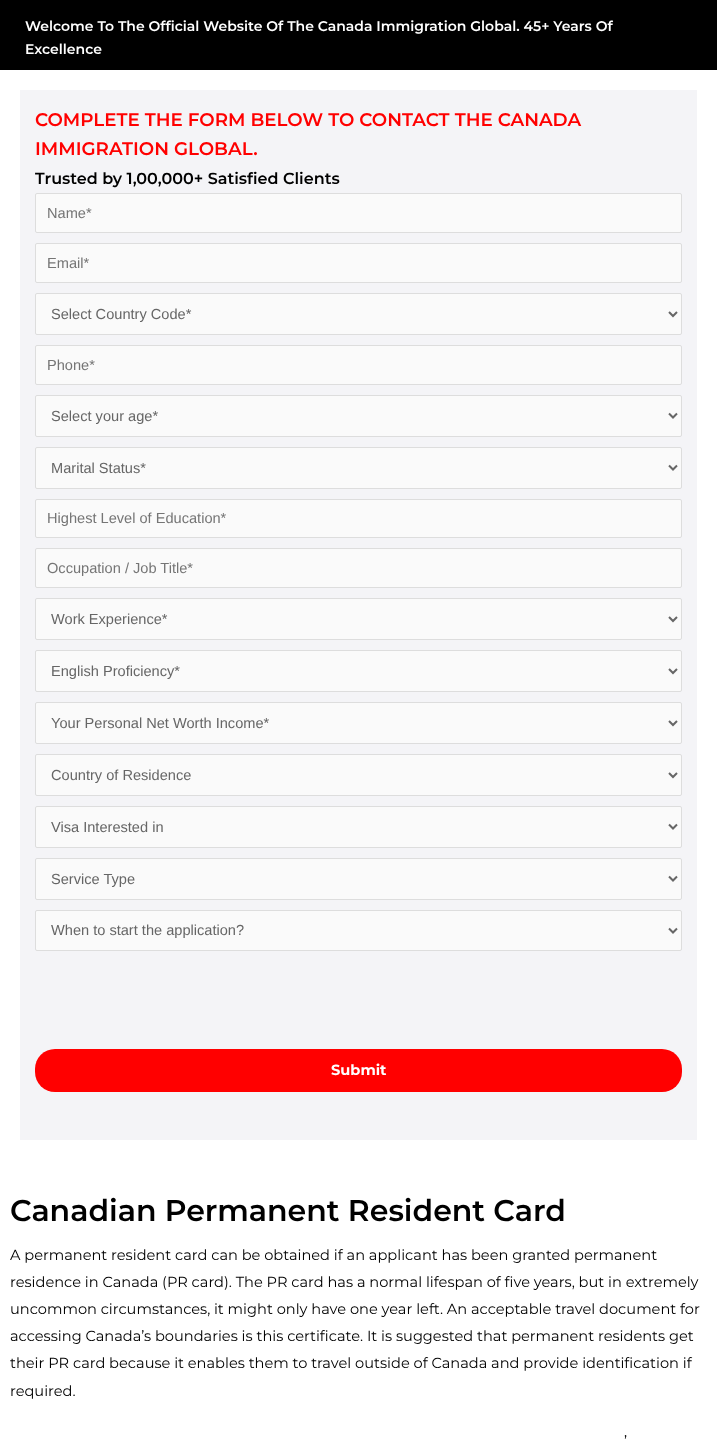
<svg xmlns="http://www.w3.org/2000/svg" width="717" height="1440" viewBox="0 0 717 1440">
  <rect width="100%" height="100%" fill="#fff"/>
  <path d="M0 0h717v70H0z" fill="#000"/>
  <path d="M20 90h677v1050H20z" fill="#f4f4f7"/>
  <rect x="35.5" y="193.5" width="646" height="39" rx="1.5" fill="#fafafa" stroke="#ddd"/>
  <rect x="35.5" y="243.5" width="646" height="39" rx="1.5" fill="#fafafa" stroke="#ddd"/>
  <rect x="35.5" y="293.5" width="646" height="41" rx="1.5" fill="#fafafa" stroke="#ddd"/>
  <path d="M669 312L673 316L677 312" fill="none" stroke="#666" stroke-width="2"/>
  <rect x="35.5" y="345.5" width="646" height="39" rx="1.5" fill="#fafafa" stroke="#ddd"/>
  <rect x="35.5" y="395.5" width="646" height="41" rx="1.5" fill="#fafafa" stroke="#ddd"/>
  <path d="M669 413.5L673 417.5L677 413.5" fill="none" stroke="#666" stroke-width="2"/>
  <rect x="35.5" y="447.5" width="646" height="41" rx="1.5" fill="#fafafa" stroke="#ddd"/>
  <path d="M669 465.5L673 469.5L677 465.5" fill="none" stroke="#666" stroke-width="2"/>
  <rect x="35.5" y="499.5" width="646" height="38" rx="1.5" fill="#fafafa" stroke="#ddd"/>
  <rect x="35.5" y="548.5" width="646" height="39" rx="1.5" fill="#fafafa" stroke="#ddd"/>
  <rect x="35.5" y="598.5" width="646" height="41" rx="1.5" fill="#fafafa" stroke="#ddd"/>
  <path d="M669 617L673 621L677 617" fill="none" stroke="#666" stroke-width="2"/>
  <rect x="35.5" y="650.5" width="646" height="41" rx="1.5" fill="#fafafa" stroke="#ddd"/>
  <path d="M669 669L673 673L677 669" fill="none" stroke="#666" stroke-width="2"/>
  <rect x="35.5" y="702.5" width="646" height="41" rx="1.5" fill="#fafafa" stroke="#ddd"/>
  <path d="M669 721L673 725L677 721" fill="none" stroke="#666" stroke-width="2"/>
  <rect x="35.5" y="754.5" width="646" height="41" rx="1.5" fill="#fafafa" stroke="#ddd"/>
  <path d="M669 773L673 777L677 773" fill="none" stroke="#666" stroke-width="2"/>
  <rect x="35.5" y="806.5" width="646" height="41" rx="1.5" fill="#fafafa" stroke="#ddd"/>
  <path d="M669 824.5L673 828.5L677 824.5" fill="none" stroke="#666" stroke-width="2"/>
  <rect x="35.5" y="858.5" width="646" height="41" rx="1.5" fill="#fafafa" stroke="#ddd"/>
  <path d="M669 876.5L673 880.5L677 876.5" fill="none" stroke="#666" stroke-width="2"/>
  <rect x="35.5" y="910.5" width="646" height="40" rx="1.5" fill="#fafafa" stroke="#ddd"/>
  <path d="M669 928.5L673 932.5L677 928.5" fill="none" stroke="#666" stroke-width="2"/>
  <rect x="35" y="1049" width="647" height="43" rx="20" fill="#f00"/>
  <g font-family="Montserrat" font-size="14" font-weight="600" fill="#fff">
    <text x="25" y="31">Welcome To The Official Website Of The Canada Immigration Global. 45+ Years Of</text>
    <text x="25" y="54">Excellence</text>
  </g>
  <g font-family="Montserrat" font-size="18.25" font-weight="600" fill="#f00">
    <text x="35" y="126">COMPLETE THE FORM BELOW TO CONTACT THE CANADA</text>
    <text x="35" y="155">IMMIGRATION GLOBAL.</text>
  </g>
  <text x="35" y="184" font-family="Montserrat" font-size="16" font-weight="600" fill="#000">Trusted by 1,00,000+ Satisfied Clients</text>
  <g font-family="Liberation Sans" font-size="14.6" fill="#757575">
    <text x="47" y="218">Name*</text>
    <text x="47" y="268">Email*</text>
  </g>
  <text x="51" y="319" font-family="Liberation Sans" font-size="14.6" fill="#666">Select Country Code*</text>
  <text x="47" y="370" font-family="Liberation Sans" font-size="14.6" fill="#757575">Phone*</text>
  <g font-family="Liberation Sans" font-size="14.6" fill="#666">
    <text x="51" y="421">Select your age*</text>
    <text x="51" y="473">Marital Status*</text>
  </g>
  <g font-family="Liberation Sans" font-size="14.6" fill="#757575">
    <text x="47" y="523">Highest Level of Education*</text>
    <text x="47" y="573">Occupation / Job Title*</text>
  </g>
  <g font-family="Liberation Sans" font-size="14.6" fill="#666">
    <text x="51" y="624">Work Experience*</text>
    <text x="51" y="676">English Proficiency*</text>
    <text x="51" y="728">Your Personal Net Worth Income*</text>
    <text x="51" y="780">Country of Residence</text>
    <text x="51" y="832">Visa Interested in</text>
    <text x="51" y="884">Service Type</text>
    <text x="51" y="935">When to start the application?</text>
  </g>
  <text x="331" y="1075" font-family="Montserrat" font-size="14.6" font-weight="bold" fill="#fff">Submit</text>
  <text x="10" y="1221" font-family="Montserrat" font-size="30" font-weight="600" fill="#000">Canadian Permanent Resident Card</text>
  <g font-family="Montserrat" font-size="14.6" fill="#000">
    <text x="10" y="1260">A permanent resident card can be obtained if an applicant has been granted permanent</text>
    <text x="10" y="1287">residence in Canada (PR card). The PR card has a normal lifespan of five years, but in extremely</text>
    <text x="10" y="1314">uncommon circumstances, it might only have one year left. An acceptable travel document for</text>
    <text x="10" y="1341">accessing Canada’s boundaries is this certificate. It is suggested that permanent residents get</text>
    <text x="10" y="1368">their PR card because it enables them to travel outside of Canada and provide identification if</text>
    <text x="10" y="1396">required.</text>
    <text x="624" y="1446">’</text>
  </g>
</svg>
